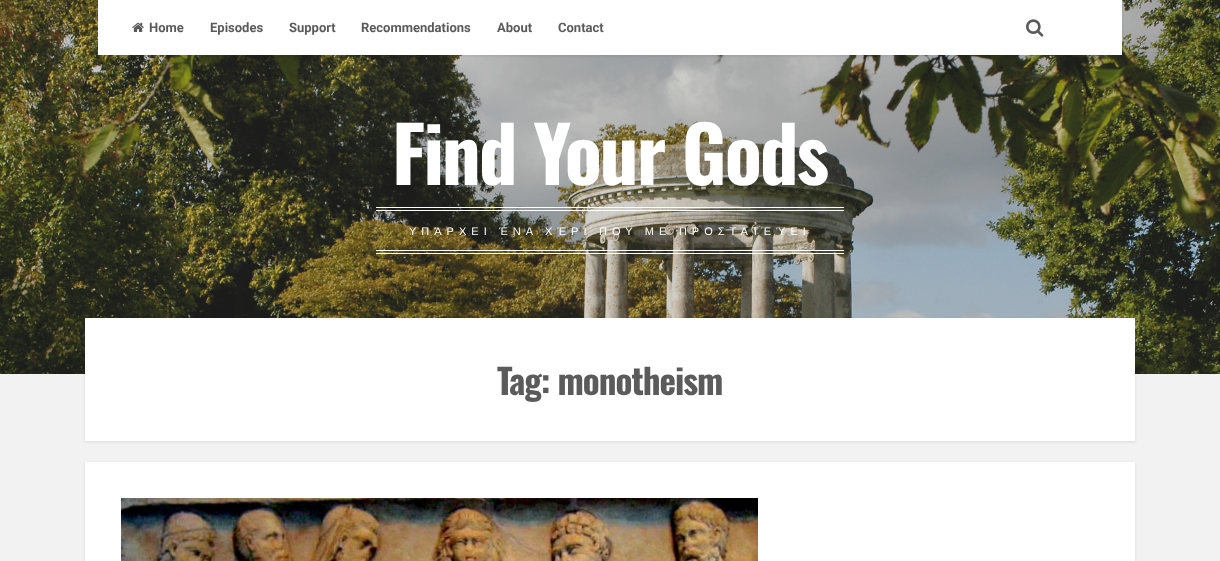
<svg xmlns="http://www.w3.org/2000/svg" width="1220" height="561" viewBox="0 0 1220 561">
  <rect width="100%" height="100%" fill="#f2f2f2"/>
  <image x="0" y="0" width="1220" height="374" href="img/3.png"/>
  <path d="M98 1h1024v55H98z" fill="#0d0d0d1a" filter="blur(1.5px)"/>
  <path d="M98 0h1024v55H98z" fill="#fff"/>
  <image x="132" y="22" width="12" height="10" href="img/1.png"/>
  <image x="1026" y="19" width="18" height="18" href="img/2.png"/>
  <path d="M376 207h468v1H376z" fill="#fff"/>
  <path d="M376 210h468v1H376z" fill="#fff"/>
  <path d="M376 250h468v1H376z" fill="#fff"/>
  <path d="M376 253h468v1H376z" fill="#fff"/>
  <path d="M85 319h1050v123H85z" fill="#0d0d0d1a" filter="blur(1.5px)"/>
  <path d="M85 318h1050v123H85z" fill="#fff"/>
  <path d="M85 463h1050v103H85z" fill="#0d0d0d1a" filter="blur(1.5px)"/>
  <path d="M85 462h1050v99H85z" fill="#fff"/>
  <image x="121" y="498" width="637" height="63" href="img/4.png"/>
  <g font-family="Roboto" font-size="13" font-weight="bold" fill="#5b5b5b">
    <text x="149" y="32">Home</text>
    <text x="210" y="32">Episodes</text>
    <text x="289" y="32">Support</text>
    <text x="361" y="32">Recommendations</text>
    <text x="497" y="32">About</text>
    <text x="558" y="32">Contact</text>
  </g>
  <text x="392" y="185" font-family="Oswald" font-size="77" font-weight="bold" letter-spacing="-2" fill="#fff">Find Your Gods</text>
  <text x="409" y="235" word-spacing="-0.5" font-family="Liberation Sans" font-size="11" letter-spacing="5" fill="#fff">ΥΠΆΡΧΕΙ ΈΝΑ ΧΈΡΙ ΠΟΥ ΜΕ ΠΡΟΣΤΑΤΕΎΕΙ</text>
  <text x="497" y="395" font-family="Oswald" font-size="35" font-weight="bold" letter-spacing="-1" fill="#5b5b5b">Tag: monotheism</text>
</svg>
